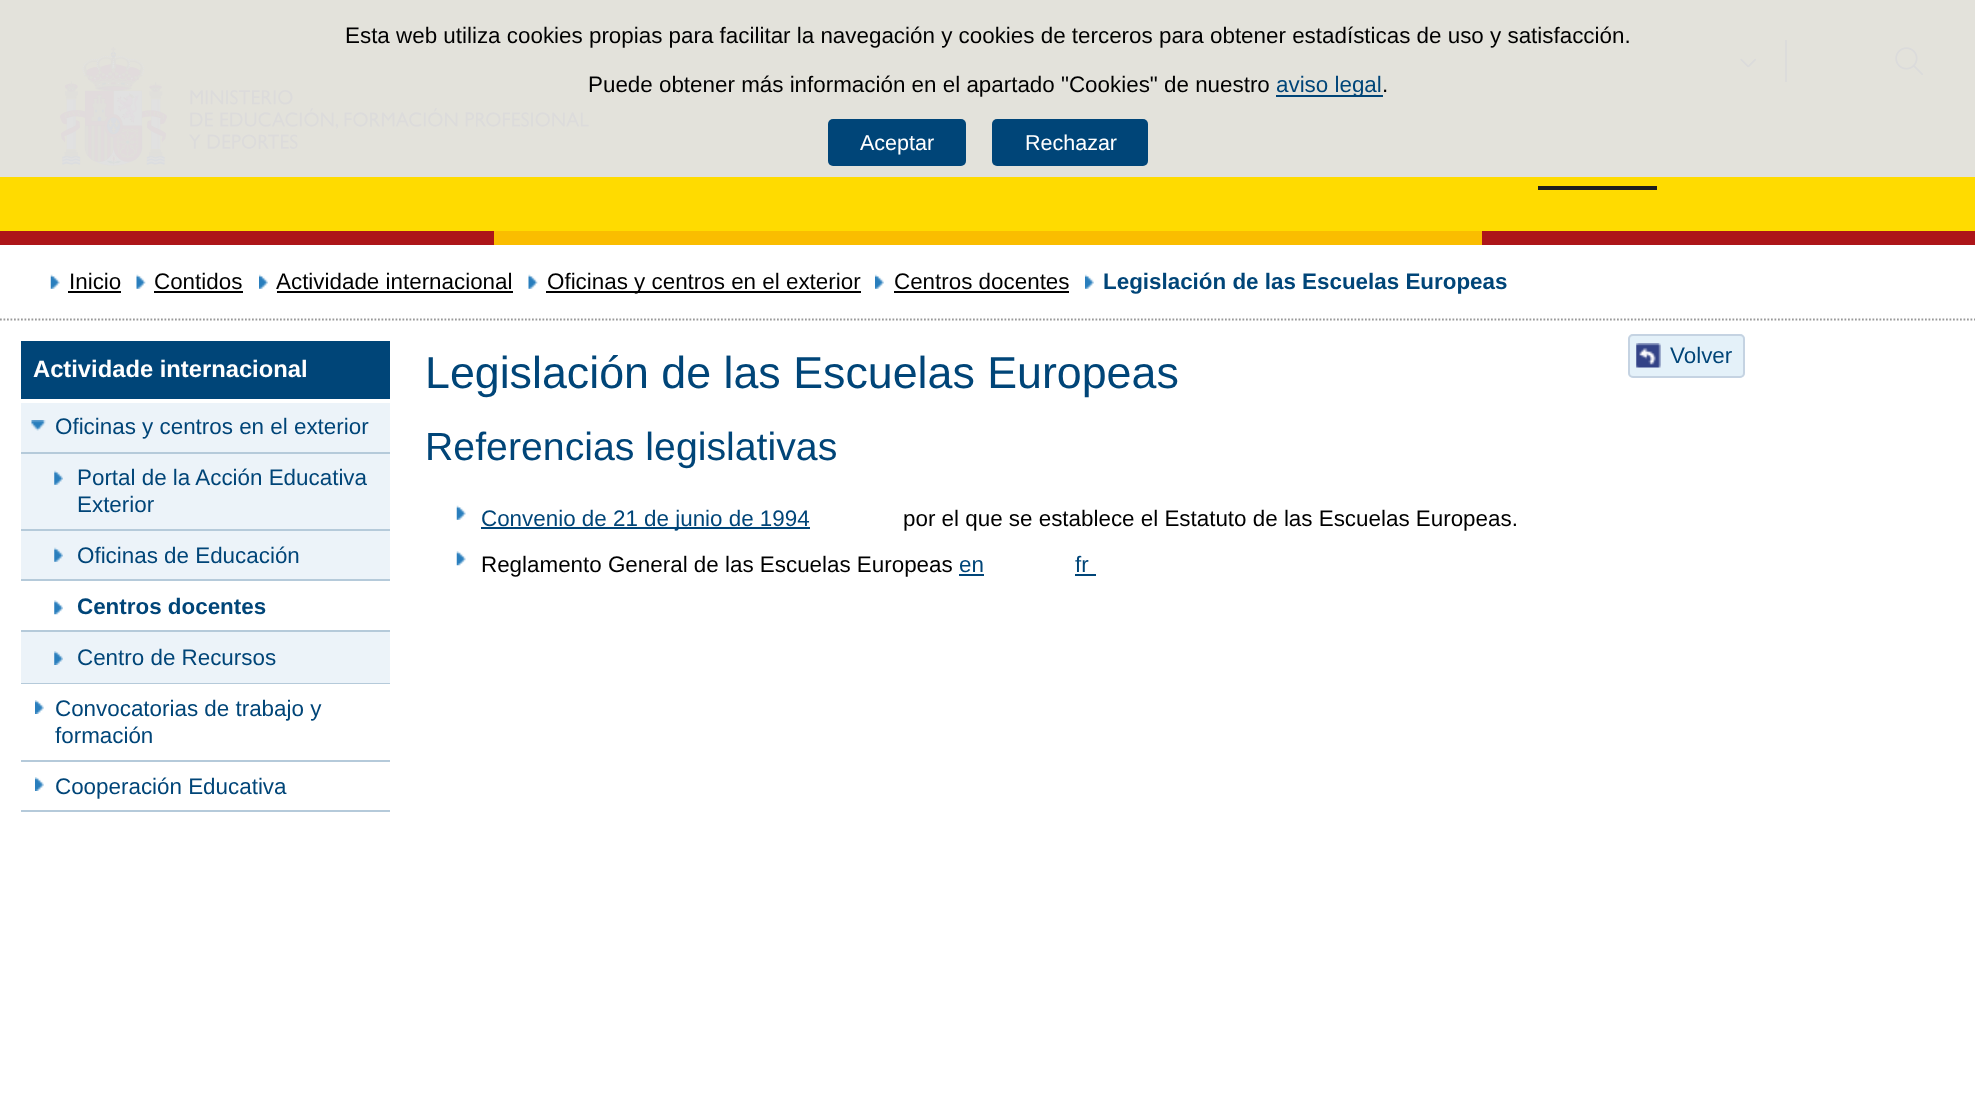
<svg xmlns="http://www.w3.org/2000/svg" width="1975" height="1117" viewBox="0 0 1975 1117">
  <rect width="100%" height="100%" fill="#fff"/>
  <path d="M0 0h1975v231H0z" fill="#ffdb00"/>
  <image x="59" y="46" width="530" height="120" href="img/1.png"/>
  <image x="1740" y="58" width="17" height="10" href="img/2.png"/>
  <path d="M1785 40h2v42H1785z" fill="#1d1d1b"/>
  <image x="1895" y="47" width="28" height="28" href="img/3.png"/>
  <path d="M0 0h1975v177H0z" fill="#e2e2e2f7"/>
  <path d="M1276 95h107v2H1276z" fill="#004578"/>
  <rect x="828" y="119" width="138" height="47" rx="5" fill="#004578"/>
  <rect x="992" y="119" width="156" height="47" rx="5" fill="#004578"/>
  <path d="M1538 186h119v4H1538z" fill="#1d1d1d"/>
  <path d="M0 231h494v14H0z" fill="#ad1519"/>
  <path d="M494 231h988v14H494z" fill="#fabd00"/>
  <path d="M1482 231h493v14H1482z" fill="#ad1519"/>
  <path d="M0 319.5H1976" fill="none" stroke="#999" stroke-width="1.8" stroke-dasharray="1.75 1.75"/>
  <image x="50" y="274" width="10" height="15" href="img/4.png"/>
  <path d="M68 291h53v2H68z" fill="#000"/>
  <image x="136" y="274" width="10" height="15" href="img/5.png"/>
  <path d="M154 291h89v2H154z" fill="#000"/>
  <image x="259" y="274" width="9" height="15" href="img/6.png"/>
  <path d="M277 291h236v2H277z" fill="#000"/>
  <image x="528" y="274" width="10" height="15" href="img/5.png"/>
  <path d="M546 291h315v2H546z" fill="#000"/>
  <image x="875" y="274" width="9" height="15" href="img/7.png"/>
  <path d="M894 291h175v2H894z" fill="#000"/>
  <image x="1085" y="274" width="9" height="15" href="img/7.png"/>
  <path d="M21 341h369v58H21z" fill="#004578"/>
  <path d="M21 403h369v280H21z" fill="#ecf3f9"/>
  <image x="31" y="420" width="15" height="11" href="img/8.png"/>
  <path d="M21 452h369v2H21z" fill="#b5cada"/>
  <image x="54" y="470" width="9" height="15" href="img/9.png"/>
  <path d="M21 529h369v2H21z" fill="#b5cada"/>
  <image x="54" y="547" width="9" height="15" href="img/9.png"/>
  <path d="M21 579h369v2H21z" fill="#b5cada"/>
  <path d="M21 581h369v49H21z" fill="#fff"/>
  <image x="54" y="600" width="9" height="15" href="img/10.png"/>
  <path d="M21 630h369v2H21z" fill="#b5cada"/>
  <image x="54" y="651" width="9" height="14" href="img/11.png"/>
  <path d="M21 683h369v1H21z" fill="#b5cada"/>
  <image x="35" y="700" width="9" height="14" href="img/12.png"/>
  <path d="M21 760h369v2H21z" fill="#b5cada"/>
  <image x="35" y="777" width="9" height="14" href="img/12.png"/>
  <path d="M21 810h369v2H21z" fill="#b5cada"/>
  <rect x="1628" y="334" width="117" height="44" rx="5" fill="#e4f1f9"/>
  <image x="1636" y="343" width="25" height="25" href="img/13.png"/>
  <rect x="1629" y="335" width="115" height="42" rx="4" fill="none" stroke="#c5d3e2" stroke-width="2"/>
  <image x="456" y="505" width="10" height="15" href="img/4.png"/>
  <path d="M481 527h329v2H481z" fill="#004578"/>
  <image x="456" y="551" width="10" height="15" href="img/14.png"/>
  <path d="M959 574h25v2H959z" fill="#004578"/>
  <path d="M1075 574h21v2H1075z" fill="#004578"/>
  <g font-family="Liberation Sans" font-size="22.4" fill="#000">
    <text x="345" y="43">Esta web utiliza cookies propias para facilitar la navegación y cookies de terceros para obtener estadísticas de uso y satisfacción.</text>
    <text x="588" y="92">Puede obtener más información en el apartado "Cookies" de nuestro</text>
  </g>
  <text x="1276" y="92" font-family="Liberation Sans" font-size="22.4" fill="#004578">aviso legal</text>
  <text x="1382" y="92" font-family="Liberation Sans" font-size="22.4" fill="#000">.</text>
  <g font-family="Liberation Sans" font-size="21.5" fill="#fff">
    <text x="860" y="150">Aceptar</text>
    <text x="1025" y="150">Rechazar</text>
  </g>
  <g font-family="Liberation Sans" font-size="22.4" fill="#000">
    <text x="69" y="289">Inicio</text>
    <text x="154" y="289">Contidos</text>
    <text x="276" y="289">Actividade internacional</text>
    <text x="547" y="289">Oficinas y centros en el exterior</text>
    <text x="894" y="289">Centros docentes</text>
  </g>
  <text x="1103" y="289" font-family="Liberation Sans" font-size="22.4" font-weight="bold" fill="#004578">Legislación de las Escuelas Europeas</text>
  <text x="33" y="377" font-family="Liberation Sans" font-size="23.75" font-weight="bold" fill="#fff">Actividade internacional</text>
  <g font-family="Liberation Sans" font-size="22.4" fill="#004578">
    <text x="55" y="434">Oficinas y centros en el exterior</text>
    <text x="77" y="485">Portal de la Acción Educativa</text>
    <text x="77" y="512">Exterior</text>
    <text x="77" y="563">Oficinas de Educación</text>
  </g>
  <text x="77" y="614" font-family="Liberation Sans" font-size="22.4" font-weight="bold" fill="#004578">Centros docentes</text>
  <g font-family="Liberation Sans" font-size="22.4" fill="#004578">
    <text x="77" y="665">Centro de Recursos</text>
    <text x="55" y="716">Convocatorias de trabajo y</text>
    <text x="55" y="743">formación</text>
    <text x="55" y="794">Cooperación Educativa</text>
  </g>
  <text x="425" y="388" font-family="Liberation Sans" font-size="44.75" fill="#004578">Legislación de las Escuelas Europeas</text>
  <text x="1670" y="363" font-family="Liberation Sans" font-size="22.4" fill="#004578">Volver</text>
  <text x="425" y="460" font-family="Liberation Sans" font-size="39.25" fill="#004578">Referencias legislativas</text>
  <text x="481" y="526" font-family="Liberation Sans" font-size="22.4" fill="#004578">Convenio de 21 de junio de 1994</text>
  <g font-family="Liberation Sans" font-size="22.4" fill="#000">
    <text x="903" y="526">por el que se establece el Estatuto de las Escuelas Europeas.</text>
    <text x="481" y="572">Reglamento General de las Escuelas Europeas</text>
  </g>
  <g font-family="Liberation Sans" font-size="22.4" fill="#004578">
    <text x="959" y="572">en</text>
    <text x="1075" y="572">fr</text>
  </g>
</svg>
